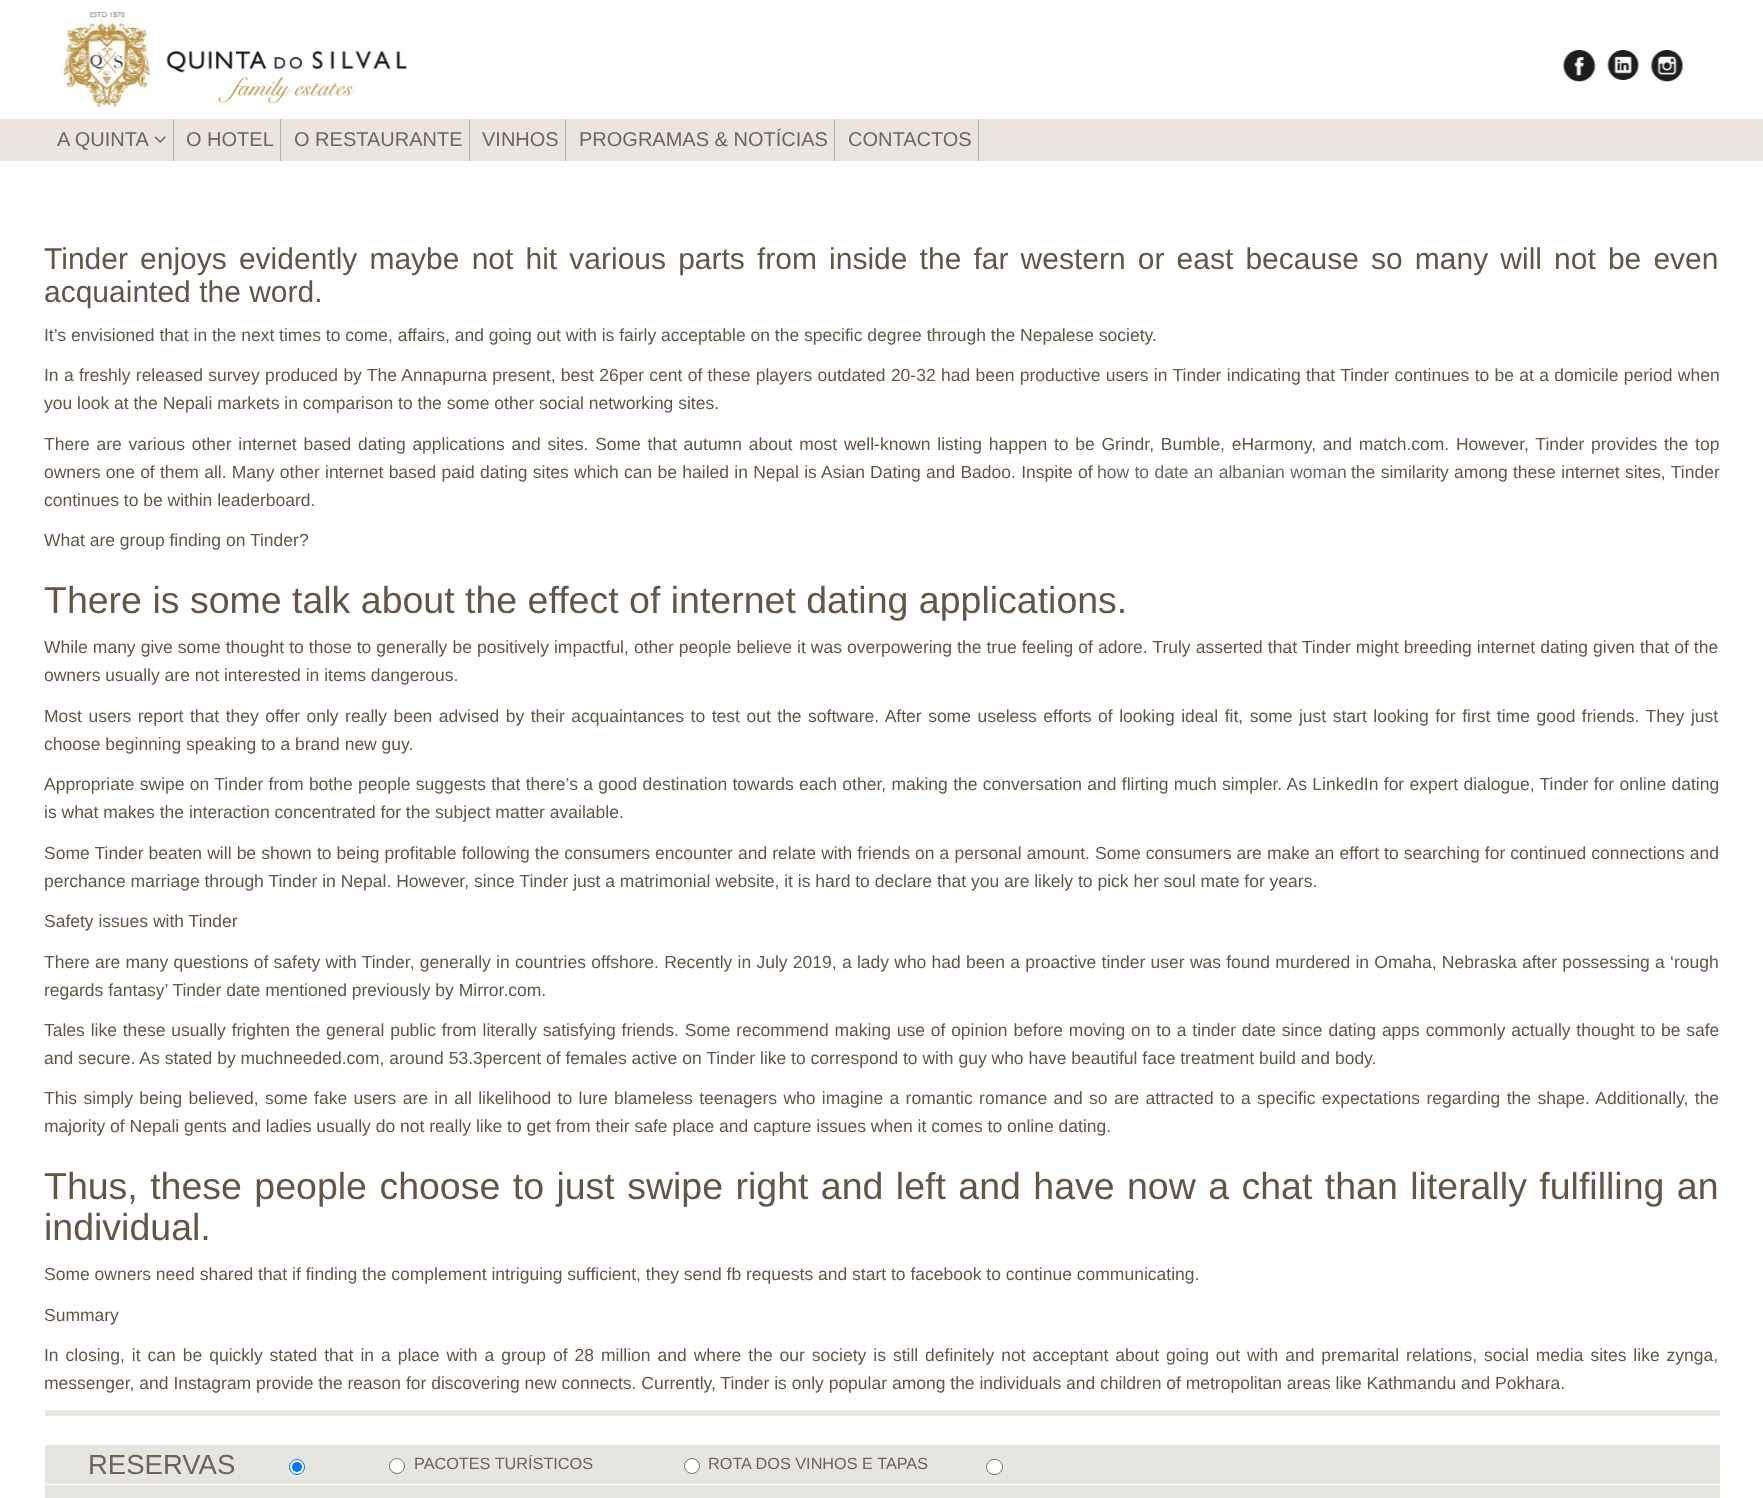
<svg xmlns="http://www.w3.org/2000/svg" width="1763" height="1498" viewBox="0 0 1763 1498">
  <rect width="100%" height="100%" fill="#fff"/>
  <image x="63" y="11" width="344" height="96" href="img/1.png"/>
  <image x="1563" y="50" width="33" height="32" href="img/2.png"/>
  <image x="1607" y="50" width="33" height="30" href="img/3.png"/>
  <image x="1650" y="50" width="33" height="32" href="img/4.png"/>
  <path d="M0 119h1763v42H0z" fill="#eae6df"/>
  <path d="M173 119h1v42H173z" fill="#b1b1b1"/>
  <image x="154" y="136" width="12" height="7" href="img/5.png"/>
  <path d="M280 119h1v42H280z" fill="#b1b1b1"/>
  <path d="M469 119h1v42H469z" fill="#b1b1b1"/>
  <path d="M565 119h1v42H565z" fill="#b1b1b1"/>
  <path d="M834 119h1v42H834z" fill="#b1b1b1"/>
  <path d="M978 119h1v42H978z" fill="#b1b1b1"/>
  <path d="M45 1410h1675v6H45z" fill="#eae6df"/>
  <path d="M45 1445h1675v39H45z" fill="#e6e5e0"/>
  <circle cx="297" cy="1467" r="7.5" fill="#fff" stroke="#0075ff"/>
  <circle cx="297" cy="1467" r="5" fill="#0075ff"/>
  <circle cx="397" cy="1466" r="7.5" fill="#fff" stroke="#767676"/>
  <circle cx="692" cy="1466" r="7.5" fill="#fff" stroke="#767676"/>
  <rect x="986.5" y="1459.5" width="16" height="15" rx="7.5" fill="#fff" stroke="#767676"/>
  <path d="M45 1485h1675v13H45z" fill="#e6e5e0"/>
  <g font-family="Liberation Sans" font-size="20" fill="#6b685f">
    <text x="57" y="146">A QUINTA</text>
    <text x="186" y="146">O HOTEL</text>
    <text x="294" y="146">O RESTAURANTE</text>
    <text x="482" y="146">VINHOS</text>
    <text x="579" y="146">PROGRAMAS &amp; NOTÍCIAS</text>
    <text x="848" y="146">CONTACTOS</text>
  </g>
  <g font-family="Liberation Sans" font-size="30" fill="#625747">
    <text x="44" y="269" word-spacing="3.8">Tinder enjoys evidently maybe not hit various parts from inside the far western or east because so many will not be even</text>
    <text x="44" y="302">acquainted the word.</text>
  </g>
  <g font-family="Liberation Sans" font-size="17.5" fill="#625747">
    <text x="44" y="341">It’s envisioned that in the next times to come, affairs, and going out with is fairly acceptable on the specific degree through the Nepalese society.</text>
    <text x="44" y="381" word-spacing="0.45">In a freshly released survey produced by The Annapurna present, best 26per cent of these players outdated 20-32 had been productive users in Tinder indicating that Tinder continues to be at a domicile period when</text>
    <text x="44" y="409">you look at the Nepali markets in comparison to the some other social networking sites.</text>
    <text x="44" y="450" word-spacing="1.9">There are various other internet based dating applications and sites. Some that autumn about most well-known listing happen to be Grindr, Bumble, eHarmony, and match.com. However, Tinder provides the top</text>
    <text x="44" y="478" word-spacing="0.4">owners one of them all. Many other internet based paid dating sites which can be hailed in Nepal is Asian Dating and Badoo. Inspite of</text>
  </g>
  <text x="1097" y="478" word-spacing="0.5" font-family="Liberation Sans" font-size="17.5" fill="#6b685f">how to date an albanian woman</text>
  <g font-family="Liberation Sans" font-size="17.5" fill="#625747">
    <text x="1351" y="478" word-spacing="0.5">the similarity among these internet sites, Tinder</text>
    <text x="44" y="506">continues to be within leaderboard.</text>
    <text x="44" y="546">What are group finding on Tinder?</text>
  </g>
  <text x="44" y="613" font-family="Liberation Sans" font-size="37.5" fill="#625747">There is some talk about the effect of internet dating applications.</text>
  <g font-family="Liberation Sans" font-size="17.5" fill="#625747">
    <text x="44" y="653" word-spacing="0.2">While many give some thought to those to generally be positively impactful, other people believe it was overpowering the true feeling of adore. Truly asserted that Tinder might breeding internet dating given that of the</text>
    <text x="44" y="681">owners usually are not interested in items dangerous.</text>
    <text x="44" y="722" word-spacing="1.65">Most users report that they offer only really been advised by their acquaintances to test out the software. After some useless efforts of looking ideal fit, some just start looking for first time good friends. They just</text>
    <text x="44" y="750">choose beginning speaking to a brand new guy.</text>
    <text x="44" y="790" word-spacing="0.45">Appropriate swipe on Tinder from bothe people suggests that there’s a good destination towards each other, making the conversation and flirting much simpler. As LinkedIn for expert dialogue, Tinder for online dating</text>
    <text x="44" y="818">is what makes the interaction concentrated for the subject matter available.</text>
    <text x="44" y="859" word-spacing="0.25">Some Tinder beaten will be shown to being profitable following the consumers encounter and relate with friends on a personal amount. Some consumers are make an effort to searching for continued connections and</text>
    <text x="44" y="887">perchance marriage through Tinder in Nepal. However, since Tinder just a matrimonial website, it is hard to declare that you are likely to pick her soul mate for years.</text>
    <text x="44" y="927">Safety issues with Tinder</text>
    <text x="44" y="968" word-spacing="0.4">There are many questions of safety with Tinder, generally in countries offshore. Recently in July 2019, a lady who had been a proactive tinder user was found murdered in Omaha, Nebraska after possessing a ‘rough</text>
    <text x="44" y="996">regards fantasy’ Tinder date mentioned previously by Mirror.com.</text>
    <text x="44" y="1036" word-spacing="0.95">Tales like these usually frighten the general public from literally satisfying friends. Some recommend making use of opinion before moving on to a tinder date since dating apps commonly actually thought to be safe</text>
    <text x="44" y="1064">and secure. As stated by muchneeded.com, around 53.3percent of females active on Tinder like to correspond to with guy who have beautiful face treatment build and body.</text>
    <text x="44" y="1104" word-spacing="1.5">This simply being believed, some fake users are in all likelihood to lure blameless teenagers who imagine a romantic romance and so are attracted to a specific expectations regarding the shape. Additionally, the</text>
    <text x="44" y="1132">majority of Nepali gents and ladies usually do not really like to get from their safe place and capture issues when it comes to online dating.</text>
  </g>
  <g font-family="Liberation Sans" font-size="37.5" fill="#625747">
    <text x="44" y="1199" word-spacing="2">Thus, these people choose to just swipe right and left and have now a chat than literally fulfilling an</text>
    <text x="44" y="1240">individual.</text>
  </g>
  <g font-family="Liberation Sans" font-size="17.5" fill="#625747">
    <text x="44" y="1280">Some owners need shared that if finding the complement intriguing sufficient, they send fb requests and start to facebook to continue communicating.</text>
    <text x="44" y="1321">Summary</text>
    <text x="44" y="1361" word-spacing="2.1">In closing, it can be quickly stated that in a place with a group of 28 million and where the our society is still definitely not acceptant about going out with and premarital relations, social media sites like zynga,</text>
    <text x="44" y="1389">messenger, and Instagram provide the reason for discovering new connects. Currently, Tinder is only popular among the individuals and children of metropolitan areas like Kathmandu and Pokhara.</text>
  </g>
  <text x="88" y="1474" font-family="Liberation Sans" font-size="27.5" fill="#6d6658">RESERVAS</text>
  <g font-family="Liberation Sans" font-size="16.25" fill="#6d6658">
    <text x="414" y="1469">PACOTES TURÍSTICOS</text>
    <text x="708" y="1469">ROTA DOS VINHOS E TAPAS</text>
  </g>
</svg>
